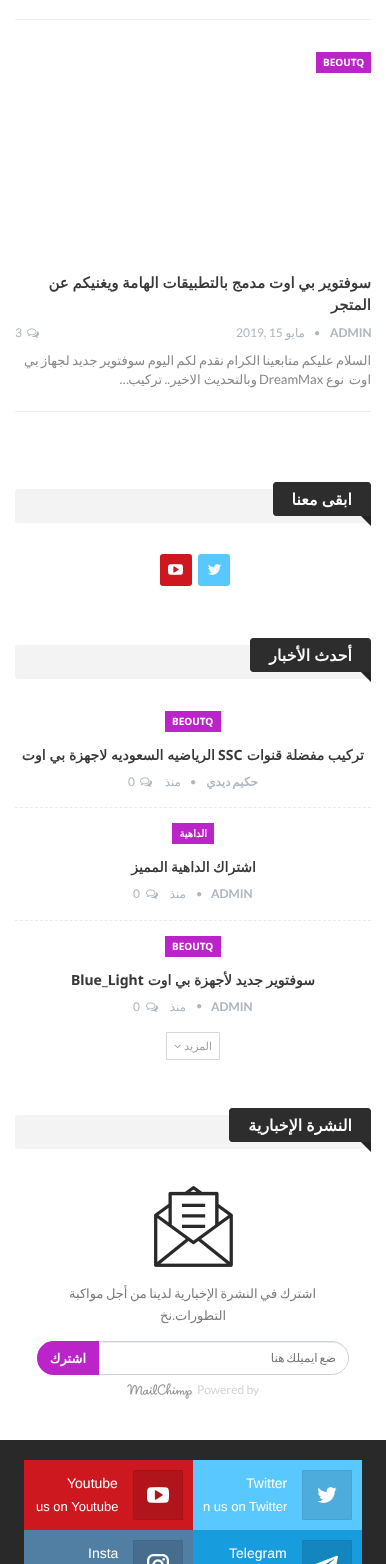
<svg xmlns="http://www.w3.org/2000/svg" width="386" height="1564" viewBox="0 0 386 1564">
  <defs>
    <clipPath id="clip1"><path d="M50 1350h286v15H50z"/></clipPath>
  </defs>
  <rect width="100%" height="100%" fill="#fff"/>
  <path d="M15 19h356v1H15z" fill="#f0f0f0"/>
  <path d="M316 52h55v21H316z" fill="#bb24c9"/>
  <image x="315" y="331" width="5" height="5" href="img/1.png"/>
  <image x="27" y="328" width="12" height="10" href="img/2.png"/>
  <path d="M15 411h356v1H15z" fill="#ededed"/>
  <rect x="15" y="489" width="356" height="34" rx="3" fill="#f3f3f3"/>
  <path d="M276 482H368C369.5 482 371 483.5 371 485V516H276C274.5 516 273 514.5 273 513V485C273 483.5 274.5 482 276 482Z" fill="#2d2d2d"/>
  <path d="M361 516H371V526Z" fill="#2d2d2d"/>
  <path d="M361 516H371V526Z" fill="#0000002e"/>
  <rect x="198" y="554" width="32" height="32" rx="3" fill="#59c8ff"/>
  <image x="208" y="564" width="13" height="11" href="img/3.png"/>
  <rect x="160" y="554" width="32" height="32" rx="3" fill="#cc181e"/>
  <image x="168" y="564" width="15" height="11" href="img/4.png"/>
  <rect x="15" y="645" width="356" height="34" rx="3" fill="#f3f3f3"/>
  <path d="M253 638H368C369.5 638 371 639.5 371 641V672H253C251.5 672 250 670.5 250 669V641C250 639.5 251.5 638 253 638Z" fill="#2d2d2d"/>
  <path d="M361 672H371V682Z" fill="#2d2d2d"/>
  <path d="M361 672H371V682Z" fill="#0000002e"/>
  <path d="M15 807.5H371" fill="none" stroke="#ebebeb" stroke-dasharray="3 1.97"/>
  <path d="M165 711h56v21H165z" fill="#bb24c9"/>
  <image x="191" y="780" width="5" height="5" href="img/1.png"/>
  <image x="140" y="777" width="12" height="10" href="img/2.png"/>
  <path d="M15 920.5H371" fill="none" stroke="#ebebeb" stroke-dasharray="3 1.97"/>
  <path d="M172 823h42v21H172z" fill="#bb24c9"/>
  <image x="197" y="892" width="5" height="5" href="img/1.png"/>
  <image x="146" y="889" width="12" height="10" href="img/2.png"/>
  <path d="M165 936h56v21H165z" fill="#bb24c9"/>
  <image x="197" y="1004" width="5" height="5" href="img/1.png"/>
  <image x="146" y="1002" width="12" height="10" href="img/2.png"/>
  <path d="M166.5 1032.5h53v27H166.5z" fill="none" stroke="#d8d8d8"/>
  <image x="174" y="1044" width="7" height="5" href="img/5.png"/>
  <rect x="15" y="1115" width="356" height="34" rx="3" fill="#f3f3f3"/>
  <path d="M232 1108H368C369.5 1108 371 1109.5 371 1111V1142H232C230.5 1142 229 1140.5 229 1139V1111C229 1109.5 230.5 1108 232 1108Z" fill="#2d2d2d"/>
  <path d="M361 1142H371V1152Z" fill="#2d2d2d"/>
  <path d="M361 1142H371V1152Z" fill="#0000002e"/>
  <image x="154" y="1186" width="79" height="81" href="img/6.png"/>
  <path d="M54 1343H332C341 1343 348 1350 348 1358C348 1350 341 1342 332 1342H54C45 1342 38 1350 38 1358C38 1350 45 1343 54 1343Z" fill="#ececec"/>
  <rect x="37.5" y="1341.5" width="311" height="33" rx="16.5" fill="none" stroke="#cbd1d8"/>
  <path d="M54 1341H99V1375H54C44.5 1375 37 1367.5 37 1358C37 1348.5 44.5 1341 54 1341Z" fill="#bb24c9"/>
  <image x="127" y="1382" width="66" height="17" href="img/7.png"/>
  <path d="M0 1440h386v124H0z" fill="#292929"/>
  <path d="M193 1460h169v70H193z" fill="#59c8ff"/>
  <path d="M302.5 1470.5h49v49H302.5z" fill="#4dacdb" stroke="#49a3d0"/>
  <image x="317" y="1487" width="20" height="16" href="img/8.png"/>
  <path d="M24 1460h169v70H24z" fill="#cc181e"/>
  <path d="M133.5 1470.5h49v49H133.5z" fill="#af151a" stroke="#a61419"/>
  <image x="147" y="1487" width="22" height="16" href="img/9.png"/>
  <path d="M193 1530h169v34H193z" fill="#179cde"/>
  <path d="M302.5 1540.5h49v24H302.5z" fill="#1486bf" stroke="#137fb5"/>
  <image x="316" y="1555" width="22" height="9" href="img/10.png"/>
  <path d="M24 1530h169v34H24z" fill="#517fa4"/>
  <path d="M133.5 1540.5h49v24H133.5z" fill="#466d8d" stroke="#436886"/>
  <image x="147" y="1554" width="22" height="10" href="img/11.png"/>
  <text x="323" y="66" font-family="Noto Sans" font-size="10" font-weight="bold" fill="#fff">BEOUTQ</text>
  <g font-family="DejaVu Sans" font-size="15" font-weight="bold" direction="rtl" fill="#383838">
    <text x="371" y="288" word-spacing="-1">سوفتوير بي اوت مدمج بالتطبيقات الهامة ويغنيكم عن</text>
    <text x="371" y="310">المتجر</text>
  </g>
  <text x="330" y="337" font-family="Lato" font-size="12" font-weight="bold" fill="#adb5bd">ADMIN</text>
  <text x="305" y="337" font-family="DejaVu Sans" font-size="12" direction="rtl" fill="#adb5bd">مايو</text>
  <g font-family="Lato" font-size="12" fill="#adb5bd">
    <text x="236" y="337">2019, 15</text>
    <text x="15" y="337">3</text>
  </g>
  <g font-family="DejaVu Sans" font-size="13" direction="rtl" fill="#888">
    <text x="371" y="365" word-spacing="-1.6">السلام عليكم متابعينا الكرام نقدم لكم اليوم سوفتوير جديد لجهاز بي</text>
    <text x="371" y="384">اوت</text>
    <text x="344" y="384">نوع</text>
  </g>
  <text x="259" y="384" font-family="Lato" font-size="13" fill="#888">DreamMax</text>
  <text x="170" y="384" font-family="Lato" font-size="13" direction="rtl" fill="#888">..</text>
  <g font-family="DejaVu Sans" font-size="13" direction="rtl" fill="#888">
    <text x="257" y="384" word-spacing="-1">وبالتحديث الاخير</text>
    <text x="162" y="384">تركيب</text>
  </g>
  <text x="129" y="384" font-family="Lato" font-size="13" direction="rtl" fill="#888">…</text>
  <g font-family="DejaVu Sans" font-size="16" font-weight="bold" direction="rtl" fill="#fff">
    <text x="352" y="505" word-spacing="-1">ابقى معنا</text>
    <text x="352" y="661" word-spacing="-1">أحدث الأخبار</text>
  </g>
  <text x="172" y="725" font-family="Noto Sans" font-size="10" font-weight="bold" fill="#fff">BEOUTQ</text>
  <text x="364" y="760" word-spacing="-1" font-family="DejaVu Sans" font-size="14" font-weight="bold" direction="rtl" fill="#383838">تركيب مفضلة قنوات</text>
  <text x="218" y="760" font-family="Noto Sans" font-size="14" font-weight="bold" fill="#383838">SSC</text>
  <text x="215" y="760" word-spacing="-0.5" font-family="DejaVu Sans" font-size="14" font-weight="bold" direction="rtl" fill="#383838">الرياضيه السعوديه لاجهزة بي اوت</text>
  <text x="258" y="786" word-spacing="-2" font-family="DejaVu Sans" font-size="12" font-weight="bold" direction="rtl" fill="#adb5bd">حكيم ديدي</text>
  <text x="181" y="786" font-family="DejaVu Sans" font-size="12" direction="rtl" fill="#adb5bd">منذ</text>
  <text x="128" y="786" font-family="Lato" font-size="12" fill="#adb5bd">0</text>
  <text x="207" y="837" font-family="DejaVu Sans" font-size="10" font-weight="bold" direction="rtl" fill="#fff">الداهية</text>
  <text x="256" y="872" word-spacing="-1" font-family="DejaVu Sans" font-size="14" font-weight="bold" direction="rtl" fill="#383838">اشتراك الداهية المميز</text>
  <text x="211" y="898" font-family="Lato" font-size="12" font-weight="bold" fill="#adb5bd">ADMIN</text>
  <text x="186" y="898" font-family="DejaVu Sans" font-size="12" direction="rtl" fill="#adb5bd">منذ</text>
  <text x="133" y="898" font-family="Lato" font-size="12" fill="#adb5bd">0</text>
  <text x="172" y="950" font-family="Noto Sans" font-size="10" font-weight="bold" fill="#fff">BEOUTQ</text>
  <text x="315" y="985" word-spacing="-1" font-family="DejaVu Sans" font-size="14" font-weight="bold" direction="rtl" fill="#383838">سوفتوير جديد لأجهزة بي اوت</text>
  <text x="71" y="985" font-family="Noto Sans" font-size="14" font-weight="bold" fill="#383838">Blue_Light</text>
  <text x="211" y="1011" font-family="Lato" font-size="12" font-weight="bold" fill="#adb5bd">ADMIN</text>
  <text x="186" y="1011" font-family="DejaVu Sans" font-size="12" direction="rtl" fill="#adb5bd">منذ</text>
  <text x="133" y="1011" font-family="Lato" font-size="12" fill="#adb5bd">0</text>
  <text x="212" y="1050" font-family="DejaVu Sans" font-size="11" direction="rtl" fill="#9e9e9e">المزيد</text>
  <text x="352" y="1131" word-spacing="-1" font-family="DejaVu Sans" font-size="16" font-weight="bold" direction="rtl" fill="#fff">النشرة الإخبارية</text>
  <g font-family="DejaVu Sans" font-size="13" direction="rtl" fill="#7b7b7b">
    <text x="316" y="1298" word-spacing="-1.6">اشترك في النشرة الإخبارية لدينا من أجل مواكبة</text>
    <text x="226" y="1320">التطورات</text>
  </g>
  <text x="175" y="1320" font-family="Lato" font-size="13" direction="rtl" fill="#7b7b7b">.</text>
  <text x="172" y="1320" font-family="DejaVu Sans" font-size="13" direction="rtl" fill="#7b7b7b">نخ</text>
  <g clip-path="url(#clip1)">
    <text x="336" y="1362" word-spacing="-2" font-family="DejaVu Sans" font-size="12" direction="rtl" fill="#757575">ضع ايميلك هنا</text>
  </g>
  <text x="86" y="1363" font-family="DejaVu Sans" font-size="13" font-weight="bold" direction="rtl" fill="#fff">اشترك</text>
  <text x="197" y="1394" font-family="Lato" font-size="12" fill="#d4d4d4">Powered by</text>
  <text x="246" y="1488" font-family="Liberation Sans" font-size="14" fill="#fff">Twitter</text>
  <text x="203" y="1511" font-family="Liberation Sans" font-size="13" fill="#fff">n us on Twitter</text>
  <text x="67" y="1488" font-family="Liberation Sans" font-size="14" fill="#fff">Youtube</text>
  <text x="36" y="1511" font-family="Liberation Sans" font-size="13" fill="#fff">us on Youtube</text>
  <g font-family="Liberation Sans" font-size="14" fill="#fff">
    <text x="229" y="1558">Telegram</text>
    <text x="88" y="1558">Insta</text>
  </g>
</svg>
